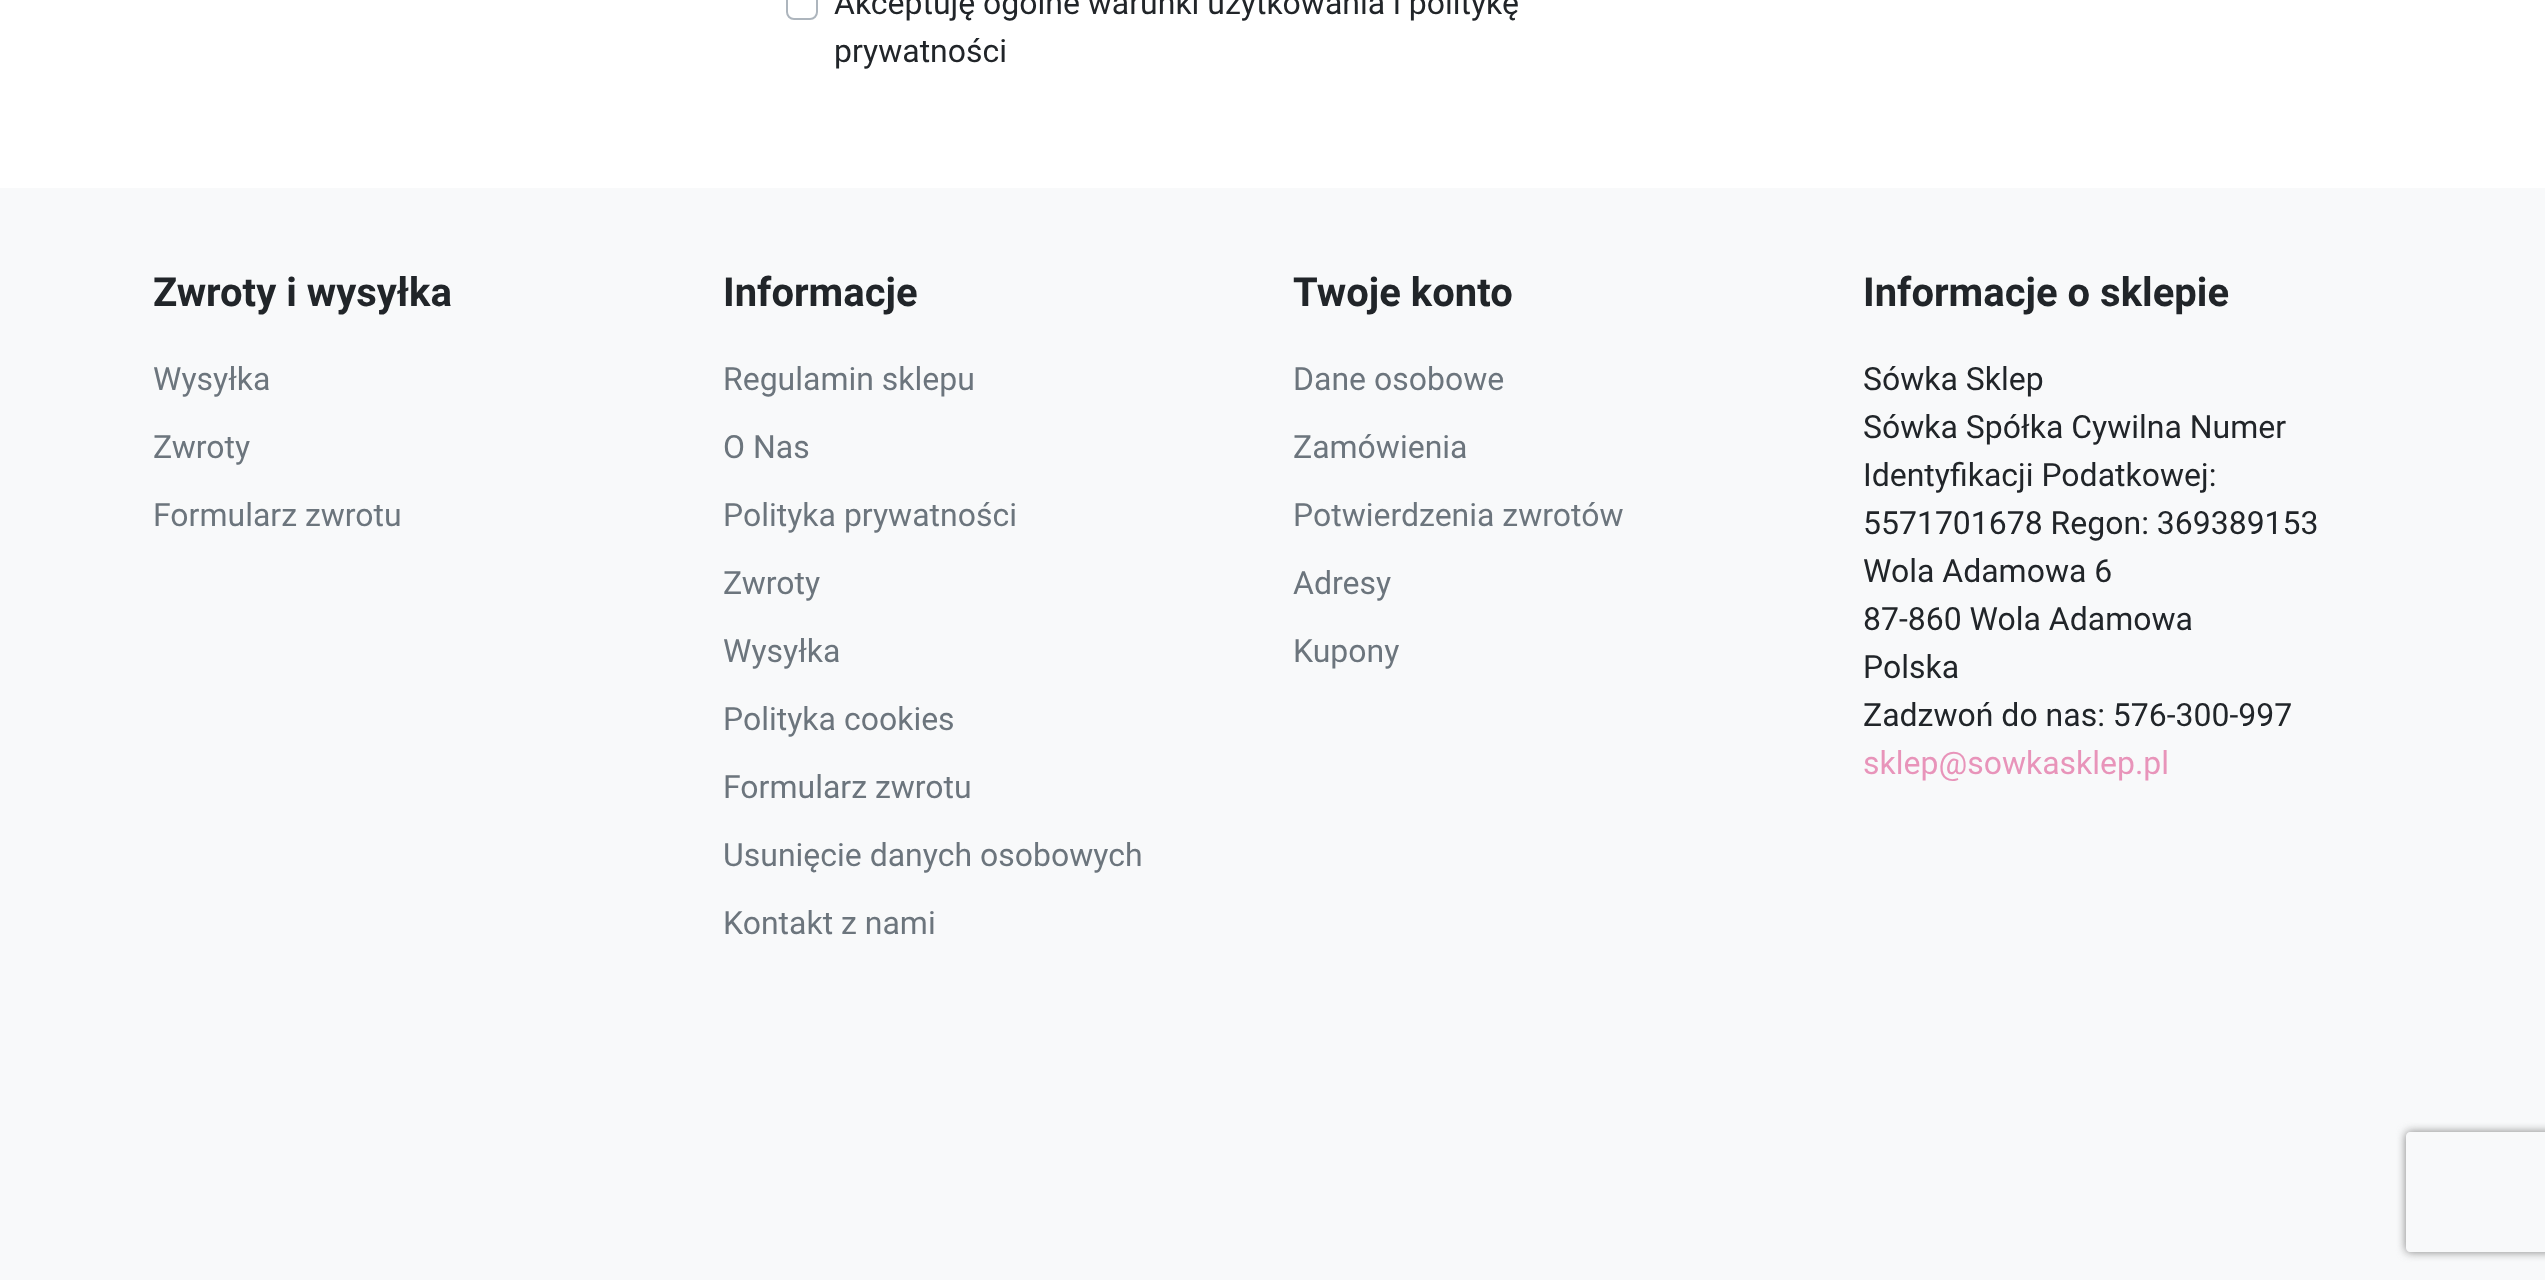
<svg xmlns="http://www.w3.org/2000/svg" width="2545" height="1280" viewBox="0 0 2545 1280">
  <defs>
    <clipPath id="clip1"><path d="M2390 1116H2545V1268H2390ZM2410 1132H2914C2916 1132 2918 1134 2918 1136V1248C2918 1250 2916 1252 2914 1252H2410C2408 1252 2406 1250 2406 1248V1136C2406 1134 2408 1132 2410 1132Z" clip-rule="evenodd"/></clipPath>
  </defs>
  <rect width="100%" height="100%" fill="#fff"/>
  <rect x="787" y="-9" width="30" height="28" rx="7" fill="none" stroke="#adb5bd" stroke-width="2"/>
  <path d="M0 188h2545v1092H0z" fill="#f8f9fa"/>
  <g clip-path="url(#clip1)">
    <rect x="2406" y="1132" width="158" height="120" rx="4" fill="#808080" filter="blur(5px)"/>
  </g>
  <g font-family="Roboto" font-size="32" fill="#212529">
    <text x="834" y="14">Akceptuję ogólne warunki użytkowania i politykę</text>
    <text x="834" y="62">prywatności</text>
  </g>
  <text x="153" y="306" font-family="Roboto" font-size="40" font-weight="bold" fill="#212529">Zwroty i wysyłka</text>
  <g font-family="Roboto" font-size="32" fill="#6c757d">
    <text x="153" y="390">Wysyłka</text>
    <text x="153" y="458">Zwroty</text>
    <text x="153" y="526">Formularz zwrotu</text>
  </g>
  <text x="723" y="306" font-family="Roboto" font-size="40" font-weight="bold" fill="#212529">Informacje</text>
  <g font-family="Roboto" font-size="32" fill="#6c757d">
    <text x="723" y="390">Regulamin sklepu</text>
    <text x="723" y="458">O Nas</text>
    <text x="723" y="526">Polityka prywatności</text>
    <text x="723" y="594">Zwroty</text>
    <text x="723" y="662">Wysyłka</text>
    <text x="723" y="730">Polityka cookies</text>
    <text x="723" y="798">Formularz zwrotu</text>
    <text x="723" y="866">Usunięcie danych osobowych</text>
    <text x="723" y="934">Kontakt z nami</text>
  </g>
  <text x="1293" y="306" font-family="Roboto" font-size="40" font-weight="bold" fill="#212529">Twoje konto</text>
  <g font-family="Roboto" font-size="32" fill="#6c757d">
    <text x="1293" y="390">Dane osobowe</text>
    <text x="1293" y="458">Zamówienia</text>
    <text x="1293" y="526">Potwierdzenia zwrotów</text>
    <text x="1293" y="594">Adresy</text>
    <text x="1293" y="662">Kupony</text>
  </g>
  <text x="1863" y="306" font-family="Roboto" font-size="40" font-weight="bold" fill="#212529">Informacje o sklepie</text>
  <g font-family="Roboto" font-size="32" fill="#212529">
    <text x="1863" y="390">Sówka Sklep</text>
    <text x="1863" y="438">Sówka Spółka Cywilna Numer</text>
    <text x="1863" y="486">Identyfikacji Podatkowej:</text>
    <text x="1863" y="534">5571701678 Regon: 369389153</text>
    <text x="1863" y="582">Wola Adamowa 6</text>
    <text x="1863" y="630">87-860 Wola Adamowa</text>
    <text x="1863" y="678">Polska</text>
    <text x="1863" y="726">Zadzwoń do nas: 576-300-997</text>
  </g>
  <text x="1863" y="774" font-family="Roboto" font-size="32" fill="#e894ba">sklep@sowkasklep.pl</text>
</svg>
